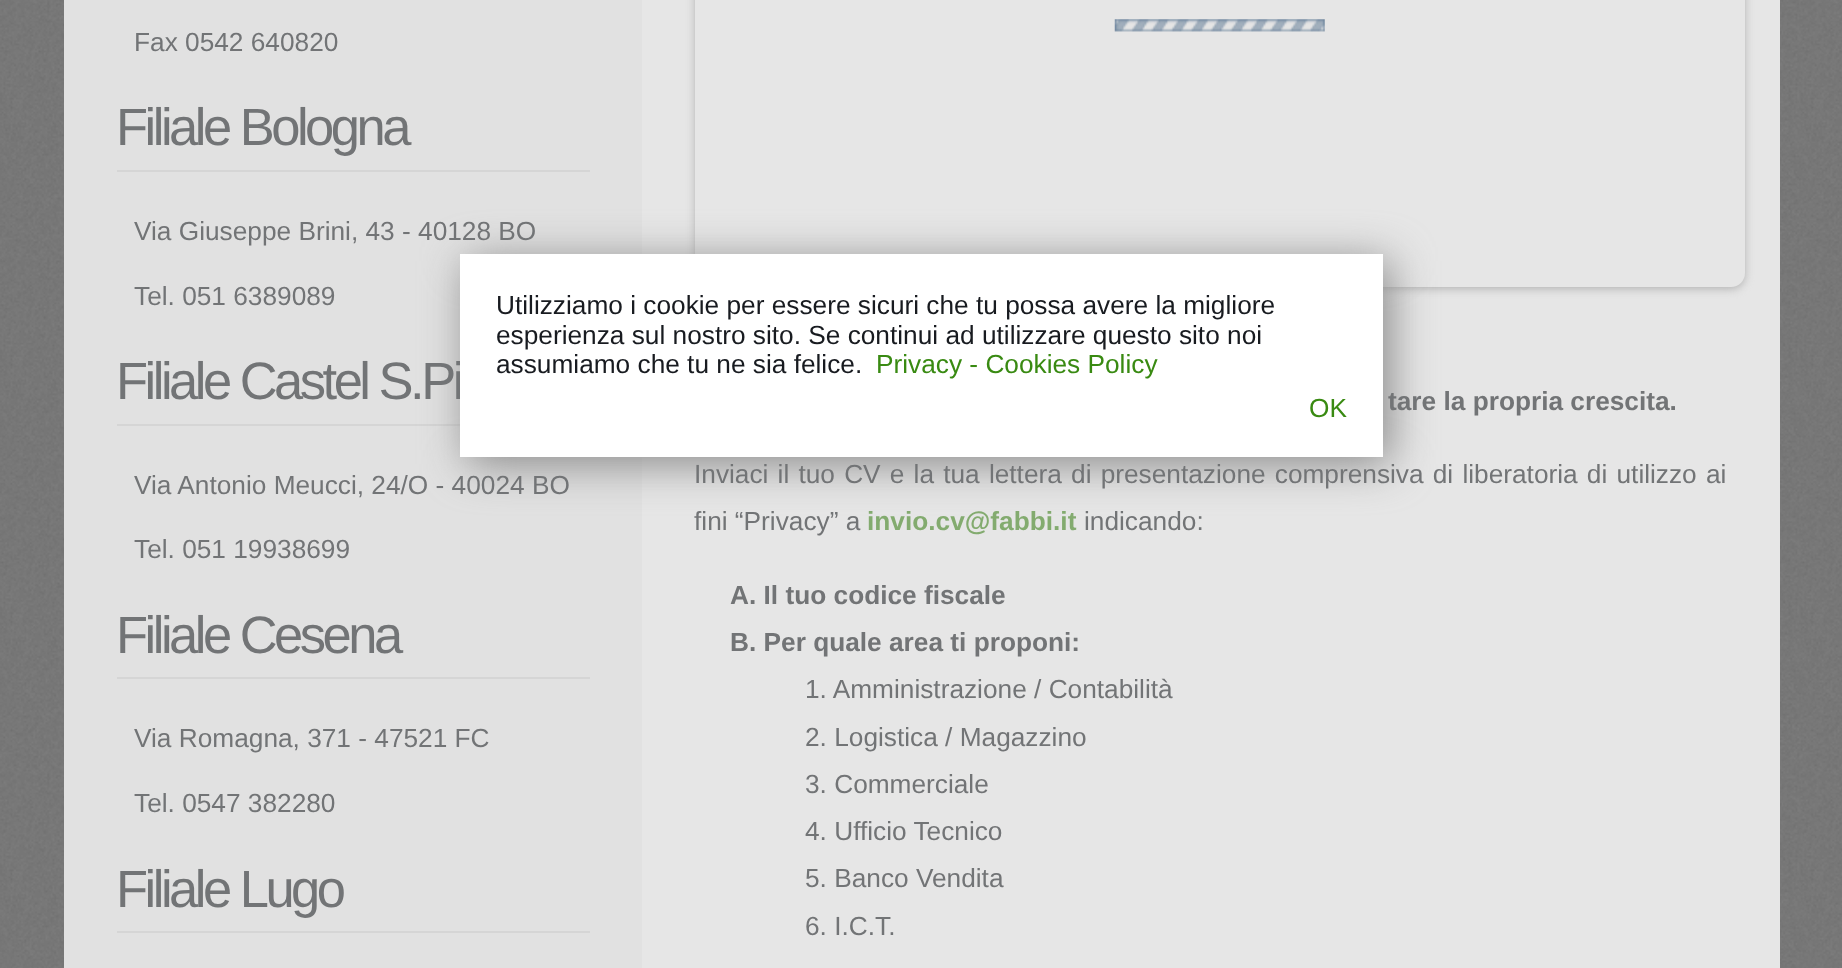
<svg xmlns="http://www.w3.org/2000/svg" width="1842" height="968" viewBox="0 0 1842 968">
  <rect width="100%" height="100%" fill="#fff"/>
  <image x="0" y="0" width="1842" height="968" href="img/1.png"/>
  <path d="M64 0h578v968H64z" fill="#e1e1e1"/>
  <path d="M117 170h473v2H117z" fill="#d5d5d5"/>
  <path d="M117 424h343v2H117z" fill="#d5d5d5"/>
  <path d="M117 677h473v2H117z" fill="#d5d5d5"/>
  <path d="M117 931h473v2H117z" fill="#d5d5d5"/>
  <path d="M642 0h1138v968H642z" fill="#e6e6e6"/>
  <rect x="695" y="-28" width="1050" height="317" rx="14" fill="#b3b3b3" filter="blur(4.5px)"/>
  <rect x="695" y="-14" width="1050" height="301" rx="14" fill="#e6e6e6"/>
  <image x="1114" y="19" width="211" height="13" href="img/2.png"/>
  <path d="M467 261h923v203H467z" fill="#888" filter="blur(22px)"/>
  <text x="134" y="51" font-family="Liberation Sans" font-size="26.25" fill="#727476">Fax 0542 640820</text>
  <text x="116" y="145" font-family="Liberation Sans" font-size="52.5" letter-spacing="-3.5" fill="#727476">Filiale Bologna</text>
  <g font-family="Liberation Sans" font-size="26.25" fill="#727476">
    <text x="134" y="240">Via Giuseppe Brini, 43 - 40128 BO</text>
    <text x="134" y="305">Tel. 051 6389089</text>
  </g>
  <text x="116" y="399" font-family="Liberation Sans" font-size="52.5" letter-spacing="-3.5" fill="#727476">Filiale Castel S.Pi</text>
  <g font-family="Liberation Sans" font-size="26.25" fill="#727476">
    <text x="134" y="494">Via Antonio Meucci, 24/O - 40024 BO</text>
    <text x="134" y="558">Tel. 051 19938699</text>
  </g>
  <text x="116" y="653" font-family="Liberation Sans" font-size="52.5" letter-spacing="-3.5" fill="#727476">Filiale Cesena</text>
  <g font-family="Liberation Sans" font-size="26.25" fill="#727476">
    <text x="134" y="747">Via Romagna, 371 - 47521 FC</text>
    <text x="134" y="812">Tel. 0547 382280</text>
  </g>
  <text x="116" y="907" font-family="Liberation Sans" font-size="52.5" letter-spacing="-3.5" fill="#727476">Filiale Lugo</text>
  <text x="1388" y="410" font-family="Liberation Sans" font-size="26.25" font-weight="bold" fill="#727476">tare la propria crescita.</text>
  <g font-family="Liberation Sans" font-size="26.25" fill="#727476">
    <text x="694" y="483" word-spacing="1.9">Inviaci il tuo CV e la tua lettera di presentazione comprensiva di liberatoria di utilizzo ai</text>
    <text x="694" y="530">fini “Privacy” a</text>
  </g>
  <text x="867" y="530" font-family="Liberation Sans" font-size="26.25" font-weight="bold" fill="#83ab6f">invio.cv@fabbi.it</text>
  <text x="1084" y="530" font-family="Liberation Sans" font-size="26.25" fill="#727476">indicando:</text>
  <g font-family="Liberation Sans" font-size="26.25" font-weight="bold" fill="#727476">
    <text x="730" y="604">A. Il tuo codice fiscale</text>
    <text x="730" y="651">B. Per quale area ti proponi:</text>
  </g>
  <g font-family="Liberation Sans" font-size="26.25" fill="#727476">
    <text x="805" y="698">1. Amministrazione / Contabilità</text>
    <text x="805" y="746">2. Logistica / Magazzino</text>
    <text x="805" y="793">3. Commerciale</text>
    <text x="805" y="840">4. Ufficio Tecnico</text>
    <text x="805" y="887">5. Banco Vendita</text>
    <text x="805" y="935">6. I.C.T.</text>
  </g>
  <path d="M460 254h923v203H460z" fill="#fff"/>
  <g font-family="Liberation Sans" font-size="26.25" fill="#181b20">
    <text x="496" y="314">Utilizziamo i cookie per essere sicuri che tu possa avere la migliore</text>
    <text x="496" y="344">esperienza sul nostro sito. Se continui ad utilizzare questo sito noi</text>
    <text x="496" y="373">assumiamo che tu ne sia felice.</text>
  </g>
  <g font-family="Liberation Sans" font-size="26.25" fill="#398a12">
    <text x="876" y="373">Privacy - Cookies Policy</text>
    <text x="1309" y="417">OK</text>
  </g>
</svg>
